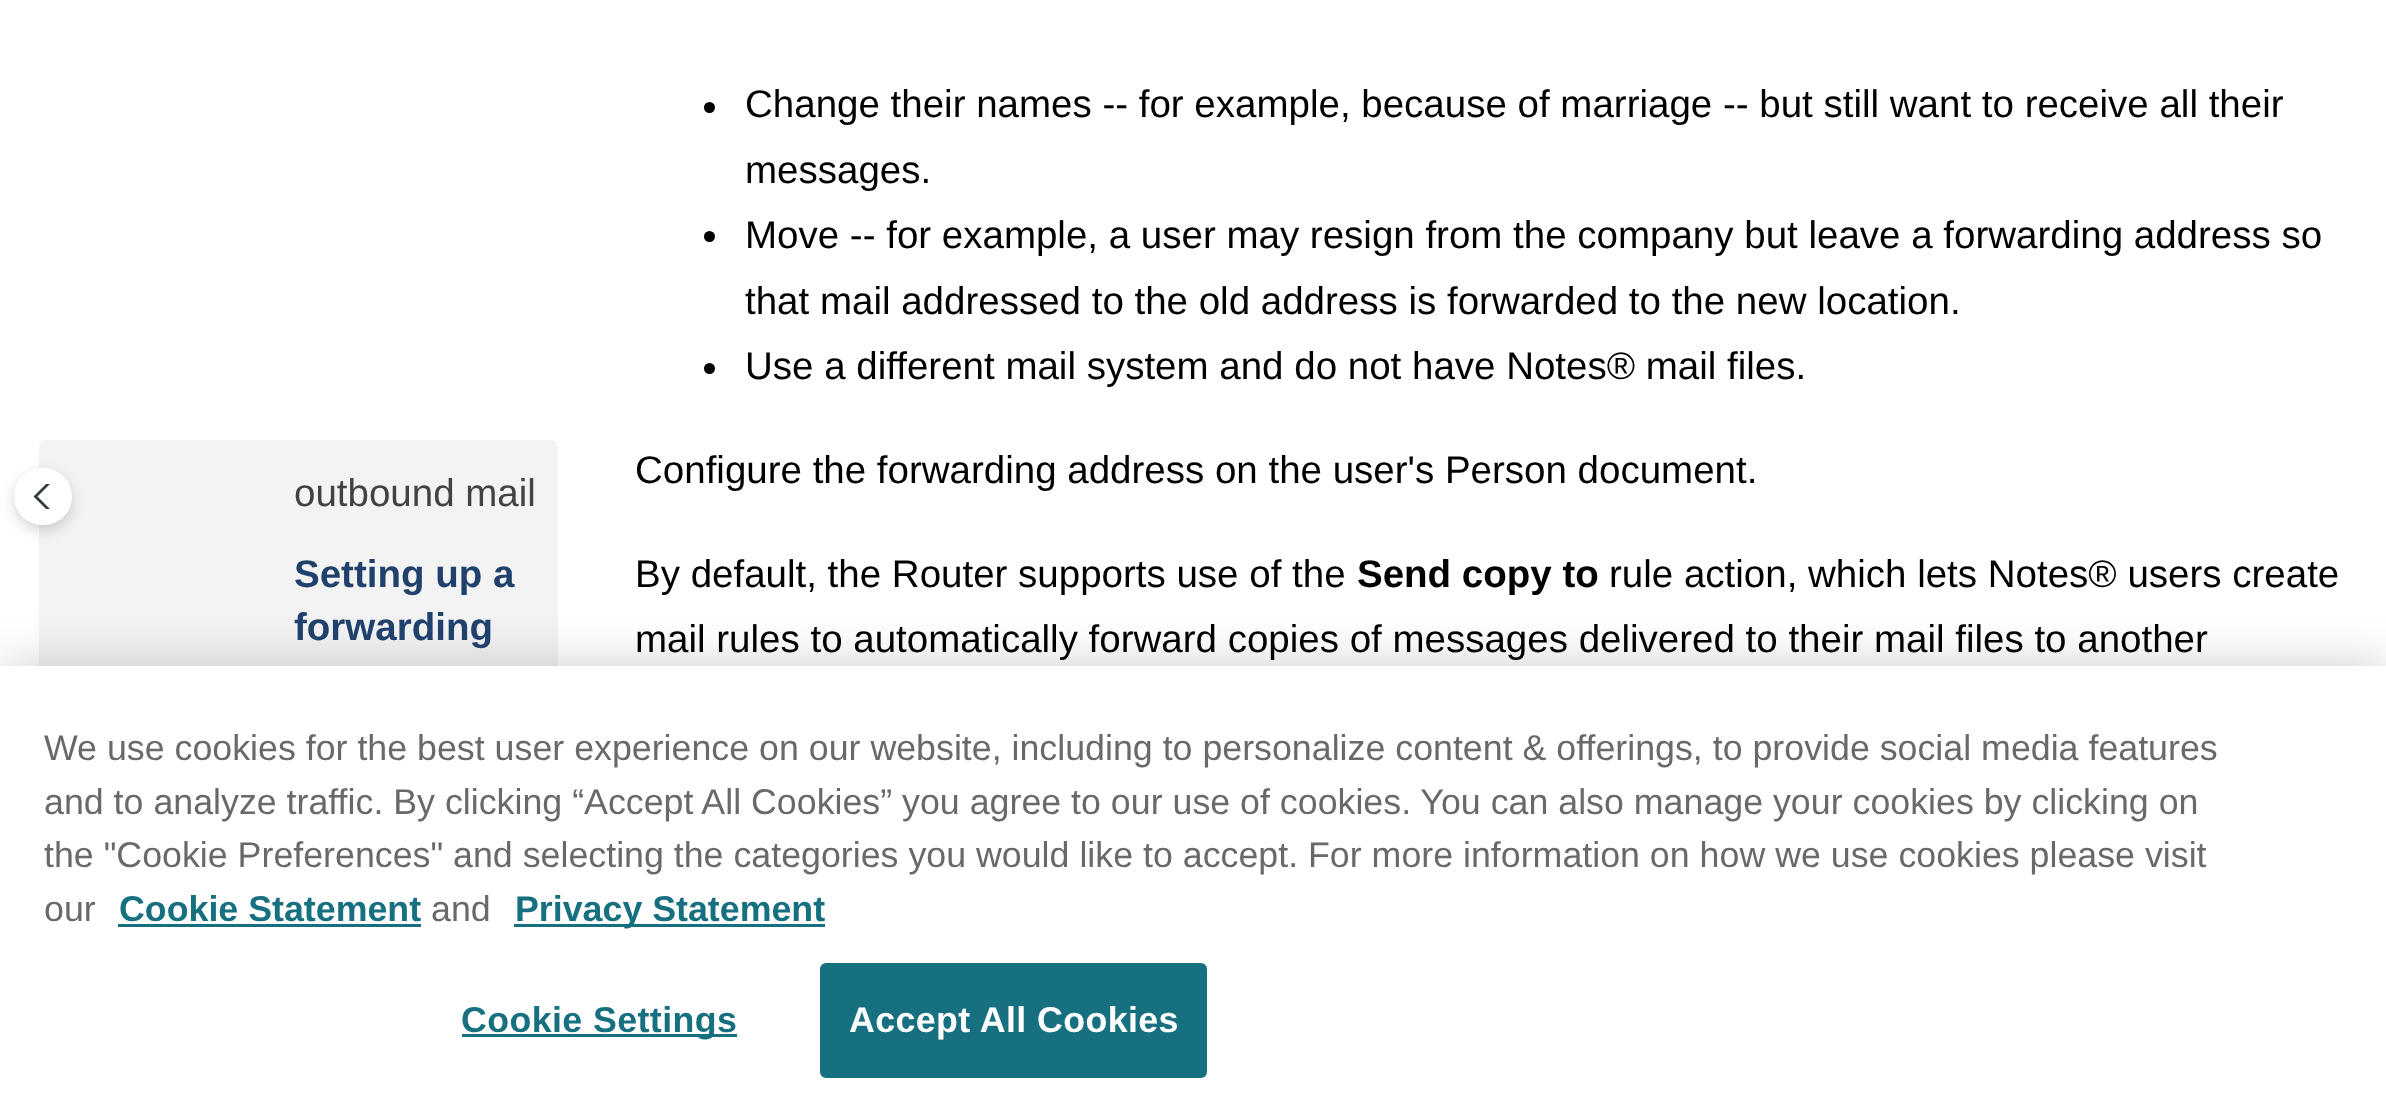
<svg xmlns="http://www.w3.org/2000/svg" width="2386" height="1104" viewBox="0 0 2386 1104">
  <defs>
    <clipPath id="clip1"><path d="M33 484h19v25H33z"/></clipPath>
  </defs>
  <rect width="100%" height="100%" fill="#fff"/>
  <rect x="39" y="440" width="519" height="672" rx="8" fill="#f3f3f3"/>
  <rect x="14" y="473" width="58" height="58" rx="29" fill="#00000029" filter="blur(7px)"/>
  <rect x="14" y="468" width="58" height="57" rx="28.5" fill="#fff"/>
  <g clip-path="url(#clip1)">
    <path d="M51 481L66.5 496.5L51 512L35.5 496.5Z" fill="none" stroke="#343a40" stroke-width="2.8"/>
  </g>
  <circle cx="709.5" cy="107.5" r="5.5" fill="#000"/>
  <circle cx="709.5" cy="236.5" r="5.5" fill="#000"/>
  <circle cx="709.5" cy="368.5" r="5.5" fill="#000"/>
  <path d="M0 666h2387v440H0z" fill="#00000033" filter="blur(25px)"/>
  <path d="M0 666h2386v438H0z" fill="#fff"/>
  <path d="M118 924h303v3H118z" fill="#17707f"/>
  <path d="M514 924h311v3H514z" fill="#17707f"/>
  <path d="M462 1034h275v3H462z" fill="#17707f"/>
  <rect x="821.5" y="964.5" width="384" height="112" rx="4.5" fill="#17707f" stroke="#17707f" stroke-width="3"/>
  <text x="294" y="506" font-family="Liberation Sans" font-size="38.5" fill="#424242">outbound mail</text>
  <g font-family="Liberation Sans" font-size="38.5" font-weight="bold" fill="#1f416b">
    <text x="294" y="587">Setting up a</text>
    <text x="294" y="640">forwarding</text>
  </g>
  <g font-family="Liberation Sans" font-size="38.5" fill="#000">
    <text x="745" y="117">Change their names -- for example, because of marriage -- but still want to receive all their</text>
    <text x="745" y="183">messages.</text>
    <text x="745" y="248">Move -- for example, a user may resign from the company but leave a forwarding address so</text>
    <text x="745" y="314">that mail addressed to the old address is forwarded to the new location.</text>
    <text x="745" y="379">Use a different mail system and do not have Notes® mail files.</text>
    <text x="635" y="483">Configure the forwarding address on the user's Person document.</text>
    <text x="635" y="587">By default, the Router supports use of the</text>
  </g>
  <text x="1357" y="587" font-family="Liberation Sans" font-size="38.5" font-weight="bold" fill="#000">Send copy to</text>
  <g font-family="Liberation Sans" font-size="38.5" fill="#000">
    <text x="1609" y="587">rule action, which lets Notes® users create</text>
    <text x="635" y="652">mail rules to automatically forward copies of messages delivered to their mail files to another</text>
  </g>
  <g font-family="Liberation Sans" font-size="35.77" fill="#696969">
    <text x="44" y="760">We use cookies for the best user experience on our website, including to personalize content &amp; offerings, to provide social media features</text>
    <text x="44" y="814">and to analyze traffic. By clicking “Accept All Cookies” you agree to our use of cookies. You can also manage your cookies by clicking on</text>
    <text x="44" y="867">the "Cookie Preferences" and selecting the categories you would like to accept. For more information on how we use cookies please visit</text>
    <text x="44" y="921">our</text>
  </g>
  <text x="119" y="921" font-family="Liberation Sans" font-size="35.77" font-weight="bold" fill="#17707f">Cookie Statement</text>
  <text x="431" y="921" font-family="Liberation Sans" font-size="35.77" fill="#696969">and</text>
  <text x="515" y="921" font-family="Liberation Sans" font-size="35.77" font-weight="bold" fill="#17707f">Privacy Statement</text>
  <text x="461" y="1032" font-family="Liberation Sans" font-size="35.77" font-weight="bold" letter-spacing="0.4" fill="#17707f">Cookie Settings</text>
  <text x="849" y="1032" font-family="Liberation Sans" font-size="35.77" font-weight="bold" letter-spacing="0.4" fill="#fff">Accept All Cookies</text>
</svg>
